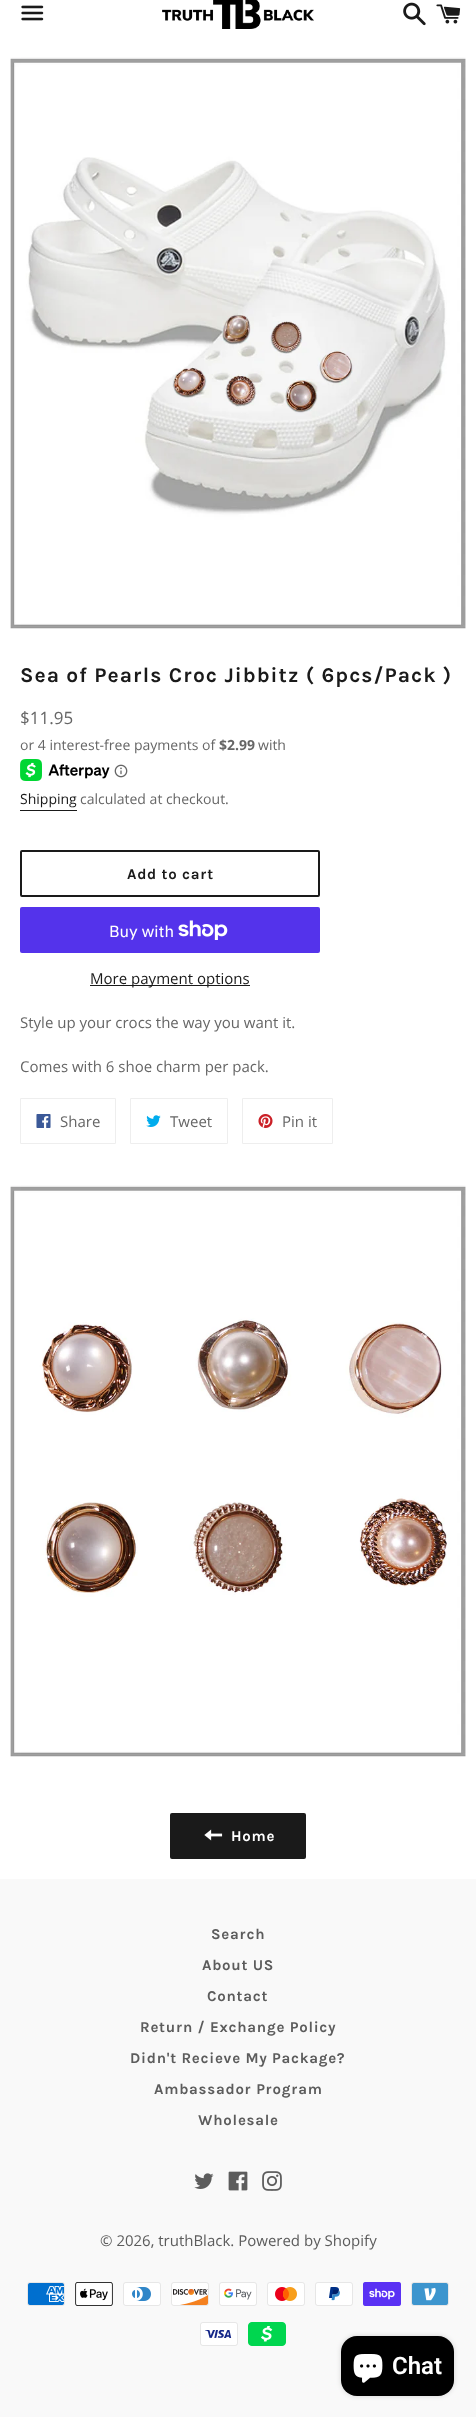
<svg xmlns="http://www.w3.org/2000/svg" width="476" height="2417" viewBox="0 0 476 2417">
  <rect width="100%" height="100%" fill="#fff"/>
  <image x="21" y="5" width="23" height="16" href="img/1.png"/>
  <image x="162" y="0" width="152" height="29" href="img/2.png"/>
  <image x="403" y="2" width="23" height="24" href="img/3.png"/>
  <image x="436" y="4" width="25" height="20" href="img/4.png"/>
  <image x="10" y="57" width="456" height="572" href="img/5.png"/>
  <image x="20" y="759" width="90" height="22" href="img/6.png"/>
  <image x="114" y="764" width="14" height="14" href="img/7.png"/>
  <path d="M20 810h57v1H20z" fill="#1a1a1a"/>
  <rect x="21" y="851" width="298" height="45" rx="1" fill="none" stroke="#1a1a1a" stroke-width="2"/>
  <rect x="20" y="907" width="300" height="46" rx="2" fill="#5433eb"/>
  <image x="178" y="920" width="50" height="20" href="img/8.png"/>
  <path d="M90 985h160v1H90z" fill="#1a1a1a"/>
  <path d="M20.5 1098.5h95v45H20.5z" fill="none" stroke="#eee"/>
  <image x="36" y="1114" width="15" height="14" href="img/9.png"/>
  <path d="M130.5 1098.5h97v45H130.5z" fill="none" stroke="#eee"/>
  <image x="146" y="1115" width="15" height="12" href="img/10.png"/>
  <path d="M242.5 1098.5h90v45H242.5z" fill="none" stroke="#eee"/>
  <image x="258" y="1114" width="15" height="14" href="img/11.png"/>
  <image x="10" y="1185" width="456" height="572" href="img/12.png"/>
  <rect x="170" y="1813" width="136" height="46" rx="2" fill="#1a1a1a"/>
  <image x="204" y="1829" width="19" height="12" href="img/13.png"/>
  <path d="M0 1879h476v538H0z" fill="#f9f9f9"/>
  <image x="194" y="2173" width="20" height="16" href="img/14.png"/>
  <image x="228" y="2171" width="20" height="20" href="img/15.png"/>
  <image x="262" y="2171" width="20" height="20" href="img/16.png"/>
  <image x="27" y="2282" width="38" height="24" href="img/17.png"/>
  <image x="75" y="2282" width="38" height="24" href="img/18.png"/>
  <image x="123" y="2282" width="38" height="24" href="img/19.png"/>
  <image x="171" y="2282" width="38" height="24" href="img/20.png"/>
  <image x="219" y="2282" width="38" height="24" href="img/21.png"/>
  <image x="267" y="2282" width="38" height="24" href="img/22.png"/>
  <image x="315" y="2282" width="38" height="24" href="img/23.png"/>
  <image x="363" y="2282" width="38" height="24" href="img/24.png"/>
  <image x="411" y="2282" width="38" height="24" href="img/25.png"/>
  <image x="200" y="2322" width="38" height="24" href="img/26.png"/>
  <image x="248" y="2322" width="38" height="24" href="img/27.png"/>
  <rect x="341" y="2336" width="113" height="60" rx="16" fill="#00000026" filter="blur(2.5px)"/>
  <rect x="341" y="2336" width="113" height="60" rx="16" fill="#000"/>
  <image x="353" y="2354" width="30" height="29" href="img/28.png"/>
  <text x="20" y="682" font-family="Karla" font-size="21" font-weight="bold" letter-spacing="1.05" fill="#1a1a1a">Sea of Pearls Croc Jibbitz ( 6pcs/Pack )</text>
  <text x="20" y="724" font-family="Open Sans" font-size="17" fill="#666">$11.95</text>
  <text x="20" y="750" font-family="Open Sans" font-size="14" fill="#666">or 4 interest-free payments of</text>
  <text x="219" y="750" font-family="Open Sans" font-size="14" font-weight="bold" fill="#666">$2.99</text>
  <text x="258" y="750" font-family="Open Sans" font-size="14" fill="#666">with</text>
  <text x="20" y="804" font-family="Open Sans" font-size="14" fill="#1a1a1a">Shipping</text>
  <text x="80" y="804" font-family="Open Sans" font-size="14" fill="#666">calculated at checkout.</text>
  <text x="127" y="879" font-family="Karla" font-size="15" font-weight="bold" letter-spacing="0.75" fill="#1a1a1a">Add to cart</text>
  <text x="109" y="937" font-family="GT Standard" font-size="16" fill="#fff">Buy with</text>
  <text x="90" y="984" font-family="Open Sans" font-size="15" fill="#1a1a1a">More payment options</text>
  <g font-family="Open Sans" font-size="15" fill="#666">
    <text x="20" y="1028">Style up your crocs the way you want it.</text>
    <text x="20" y="1072">Comes with 6 shoe charm per pack.</text>
    <text x="60" y="1127">Share</text>
    <text x="170" y="1127">Tweet</text>
    <text x="282" y="1127">Pin it</text>
  </g>
  <text x="231" y="1841" font-family="Karla" font-size="15" font-weight="bold" letter-spacing="0.75" fill="#fff">Home</text>
  <g font-family="Karla" font-size="15" font-weight="bold" letter-spacing="0.75" fill="#5c5c5c">
    <text x="211" y="1939">Search</text>
    <text x="202" y="1970">About US</text>
    <text x="207" y="2001">Contact</text>
    <text x="140" y="2032">Return / Exchange Policy</text>
    <text x="130" y="2063">Didn't Recieve My Package?</text>
    <text x="154" y="2094">Ambassador Program</text>
    <text x="198" y="2125">Wholesale</text>
  </g>
  <text x="100" y="2246" font-family="Open Sans" font-size="15" fill="#5c5c5c">© 2026, truthBlack. Powered by Shopify</text>
  <text x="392" y="2374" font-family="Roboto" font-size="24" font-weight="600" fill="#fff">Chat</text>
</svg>
